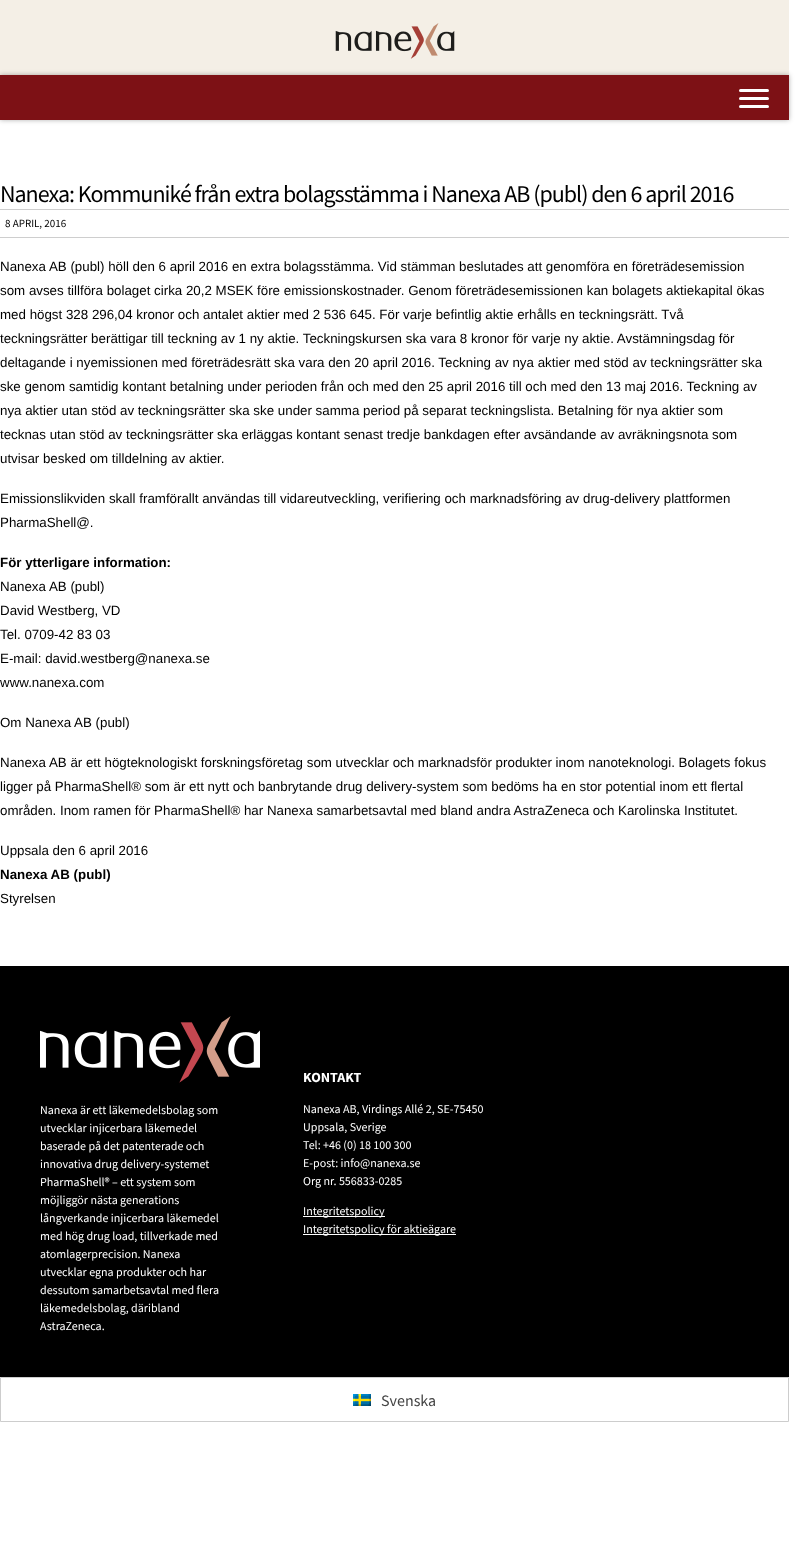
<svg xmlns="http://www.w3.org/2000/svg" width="809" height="1563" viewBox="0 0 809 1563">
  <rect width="100%" height="100%" fill="#fff"/>
  <path d="M0 0h789v75H0z" fill="#f4efe6"/>
  <image x="335" y="23" width="120" height="36" href="img/1.png"/>
  <path d="M0 75h789v45H0z" fill="#0000004d" filter="blur(2.5px)"/>
  <path d="M0 75h789v45H0z" fill="#7d1115"/>
  <rect x="739" y="89" width="30" height="3" rx="1.5" fill="#fff"/>
  <rect x="739" y="97" width="30" height="3" rx="1.5" fill="#fff"/>
  <rect x="739" y="105" width="30" height="3" rx="1.5" fill="#fff"/>
  <path d="M0 209h789v1H0z" fill="#cecece"/>
  <path d="M0 237h789v1H0z" fill="#cecece"/>
  <path d="M0 966h789v411H0z" fill="#000"/>
  <image x="40" y="1016" width="220" height="67" href="img/2.png"/>
  <path d="M303 1216h82v1H303z" fill="#fff"/>
  <path d="M303 1234h153v1H303z" fill="#fff"/>
  <path d="M0.5 1377.5h788v44H0.5z" fill="none" stroke="#cdcdcd"/>
  <image x="353" y="1394" width="18" height="12" href="img/3.png"/>
  <text x="0" y="202" font-family="Source Sans Pro" font-size="24" letter-spacing="-1" fill="#000">Nanexa: Kommuniké från extra bolagsstämma i Nanexa AB (publ) den 6 april 2016</text>
  <text x="5" y="227" font-family="Source Sans Pro" font-size="11" fill="#000">8 APRIL, 2016</text>
  <g font-family="Liberation Sans" font-size="13.33" fill="#000">
    <text x="0" y="271">Nanexa AB (publ) höll den 6 april 2016 en extra bolagsstämma. Vid stämman beslutades att genomföra en företrädesemission</text>
    <text x="0" y="295">som avses tillföra bolaget cirka 20,2 MSEK före emissionskostnader. Genom företrädesemissionen kan bolagets aktiekapital ökas</text>
    <text x="0" y="319">med högst 328 296,04 kronor och antalet aktier med 2 536 645. För varje befintlig aktie erhålls en teckningsrätt. Två</text>
    <text x="0" y="343">teckningsrätter berättigar till teckning av 1 ny aktie. Teckningskursen ska vara 8 kronor för varje ny aktie. Avstämningsdag för</text>
    <text x="0" y="367">deltagande i nyemissionen med företrädesrätt ska vara den 20 april 2016. Teckning av nya aktier med stöd av teckningsrätter ska</text>
    <text x="0" y="391">ske genom samtidig kontant betalning under perioden från och med den 25 april 2016 till och med den 13 maj 2016. Teckning av</text>
    <text x="0" y="415">nya aktier utan stöd av teckningsrätter ska ske under samma period på separat teckningslista. Betalning för nya aktier som</text>
    <text x="0" y="439">tecknas utan stöd av teckningsrätter ska erläggas kontant senast tredje bankdagen efter avsändande av avräkningsnota som</text>
    <text x="0" y="463">utvisar besked om tilldelning av aktier.</text>
    <text x="0" y="503">Emissionslikviden skall framförallt användas till vidareutveckling, verifiering och marknadsföring av drug-delivery plattformen</text>
    <text x="0" y="527">PharmaShell@.</text>
  </g>
  <text x="0" y="567" font-family="Liberation Sans" font-size="13.33" font-weight="bold" fill="#000">För ytterligare information:</text>
  <g font-family="Liberation Sans" font-size="13.33" fill="#000">
    <text x="0" y="591">Nanexa AB (publ)</text>
    <text x="0" y="615">David Westberg, VD</text>
    <text x="0" y="639">Tel. 0709-42 83 03</text>
    <text x="0" y="663">E-mail: david.westberg@nanexa.se</text>
    <text x="0" y="687">www.nanexa.com</text>
    <text x="0" y="727">Om Nanexa AB (publ)</text>
    <text x="0" y="767">Nanexa AB är ett högteknologiskt forskningsföretag som utvecklar och marknadsför produkter inom nanoteknologi. Bolagets fokus</text>
    <text x="0" y="791">ligger på PharmaShell® som är ett nytt och banbrytande drug delivery-system som bedöms ha en stor potential inom ett flertal</text>
    <text x="0" y="815">områden. Inom ramen för PharmaShell® har Nanexa samarbetsavtal med bland andra AstraZeneca och Karolinska Institutet.</text>
    <text x="0" y="855">Uppsala den 6 april 2016</text>
  </g>
  <text x="0" y="879" font-family="Liberation Sans" font-size="13.33" font-weight="bold" fill="#000">Nanexa AB (publ)</text>
  <text x="0" y="903" font-family="Liberation Sans" font-size="13.33" fill="#000">Styrelsen</text>
  <g font-family="Source Sans Pro" font-size="12" fill="#fff">
    <text x="40" y="1114">Nanexa är ett läkemedelsbolag som</text>
    <text x="40" y="1132">utvecklar injicerbara läkemedel</text>
    <text x="40" y="1150">baserade på det patenterade och</text>
    <text x="40" y="1168">innovativa drug delivery-systemet</text>
    <text x="40" y="1186">PharmaShell® – ett system som</text>
    <text x="40" y="1204">möjliggör nästa generations</text>
    <text x="40" y="1222">långverkande injicerbara läkemedel</text>
    <text x="40" y="1240">med hög drug load, tillverkade med</text>
    <text x="40" y="1258">atomlagerprecision. Nanexa</text>
    <text x="40" y="1276">utvecklar egna produkter och har</text>
    <text x="40" y="1294">dessutom samarbetsavtal med flera</text>
    <text x="40" y="1312">läkemedelsbolag, däribland</text>
    <text x="40" y="1330">AstraZeneca.</text>
  </g>
  <text x="303" y="1082" font-family="Source Sans Pro" font-size="14" font-weight="bold" fill="#fff">KONTAKT</text>
  <g font-family="Source Sans Pro" font-size="12" fill="#fff">
    <text x="303" y="1113">Nanexa AB, Virdings Allé 2, SE-75450</text>
    <text x="303" y="1131">Uppsala, Sverige</text>
    <text x="303" y="1149">Tel: +46 (0) 18 100 300</text>
    <text x="303" y="1167">E-post: info@nanexa.se</text>
    <text x="303" y="1185">Org nr. 556833-0285</text>
    <text x="303" y="1215">Integritetspolicy</text>
    <text x="303" y="1233">Integritetspolicy för aktieägare</text>
  </g>
  <text x="381" y="1406" font-family="Source Sans Pro" font-size="16" fill="#444">Svenska</text>
</svg>
